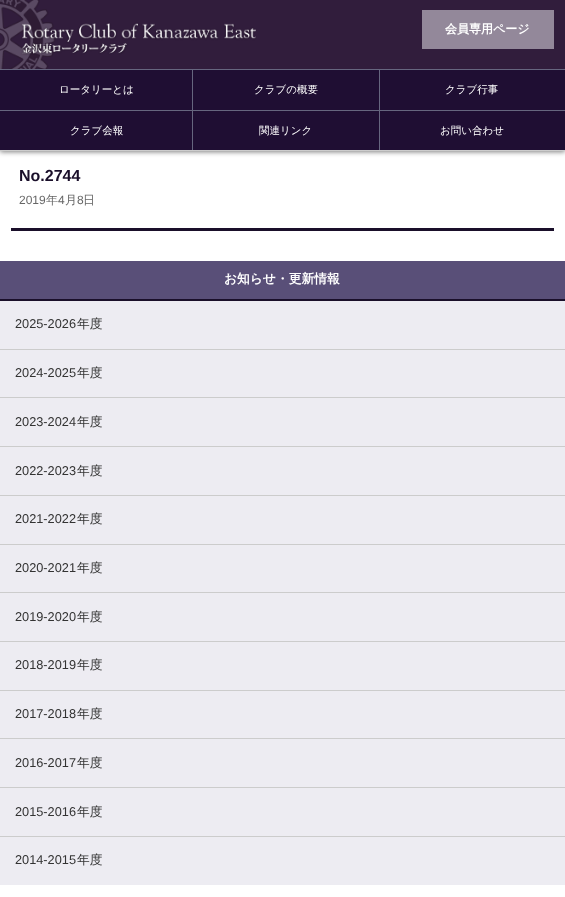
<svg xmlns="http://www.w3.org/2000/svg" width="565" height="897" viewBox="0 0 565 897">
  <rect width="100%" height="100%" fill="#fff"/>
  <path d="M0 1h565v151H0z" fill="#00000080" filter="blur(2.5px)"/>
  <path d="M0 0h565v69H0z" fill="#311d3c"/>
  <path d="M0 150h565v1H0z" fill="#ccc"/>
  <image x="0" y="0" width="256" height="69" href="img/1.png"/>
  <path d="M422 10h132v39H422z" fill="#93889a"/>
  <path d="M0 70h565v80H0z" fill="#1f0e33"/>
  <path d="M0 69h565v1H0z" fill="#66667f"/>
  <path d="M0 110h565v1H0z" fill="#66667f"/>
  <path d="M192 70h1v40H192z" fill="#66667f"/>
  <path d="M379 70h1v40H379z" fill="#66667f"/>
  <path d="M192 111h1v39H192z" fill="#66667f"/>
  <path d="M379 111h1v39H379z" fill="#66667f"/>
  <path d="M11 228h543v3H11z" fill="#1a0f2a"/>
  <path d="M0 301h565v584H0z" fill="#edecf2"/>
  <path d="M0 261h565v38H0z" fill="#594f78"/>
  <path d="M0 299h565v2H0z" fill="#1a0f2a"/>
  <path d="M0 349h565v1H0z" fill="#ccc"/>
  <path d="M0 397h565v1H0z" fill="#ccc"/>
  <path d="M0 446h565v1H0z" fill="#ccc"/>
  <path d="M0 495h565v1H0z" fill="#ccc"/>
  <path d="M0 544h565v1H0z" fill="#ccc"/>
  <path d="M0 592h565v1H0z" fill="#ccc"/>
  <path d="M0 641h565v1H0z" fill="#ccc"/>
  <path d="M0 690h565v1H0z" fill="#ccc"/>
  <path d="M0 738h565v1H0z" fill="#ccc"/>
  <path d="M0 787h565v1H0z" fill="#ccc"/>
  <path d="M0 836h565v1H0z" fill="#ccc"/>
  <text x="445" y="33" font-family="WenQuanYi Zen Hei" font-size="12" font-weight="bold" fill="#fff">会員専用ページ</text>
  <g font-family="WenQuanYi Zen Hei" font-size="10.5" font-weight="500" fill="#fff">
    <text x="59" y="93">ロータリーとは</text>
    <text x="254" y="93">クラブの概要</text>
    <text x="445" y="93">クラブ行事</text>
    <text x="70" y="134">クラブ会報</text>
    <text x="259" y="134">関連リンク</text>
    <text x="440" y="134">お問い合わせ</text>
  </g>
  <text x="19" y="181" font-family="Liberation Sans" font-size="16" font-weight="bold" fill="#1a0f2a">No.2744</text>
  <text x="19" y="204" font-family="Liberation Sans" font-size="12" fill="#666">2019</text>
  <text x="46" y="204" font-family="WenQuanYi Zen Hei" font-size="12" font-weight="500" fill="#666">年</text>
  <text x="58" y="204" font-family="Liberation Sans" font-size="12" fill="#666">4</text>
  <text x="65" y="204" font-family="WenQuanYi Zen Hei" font-size="12" font-weight="500" fill="#666">月</text>
  <text x="77" y="204" font-family="Liberation Sans" font-size="12" fill="#666">8</text>
  <text x="83" y="204" font-family="WenQuanYi Zen Hei" font-size="12" font-weight="500" fill="#666">日</text>
  <text x="224" y="283" font-family="WenQuanYi Zen Hei" font-size="12.75" font-weight="bold" fill="#fff">お知らせ・更新情報</text>
  <text x="15" y="328" font-family="Liberation Sans" font-size="12.75" fill="#333">2025-2026</text>
  <text x="77" y="328" font-family="WenQuanYi Zen Hei" font-size="12.75" font-weight="500" fill="#333">年度</text>
  <text x="15" y="377" font-family="Liberation Sans" font-size="12.75" fill="#333">2024-2025</text>
  <text x="77" y="377" font-family="WenQuanYi Zen Hei" font-size="12.75" font-weight="500" fill="#333">年度</text>
  <text x="15" y="426" font-family="Liberation Sans" font-size="12.75" fill="#333">2023-2024</text>
  <text x="77" y="426" font-family="WenQuanYi Zen Hei" font-size="12.75" font-weight="500" fill="#333">年度</text>
  <text x="15" y="475" font-family="Liberation Sans" font-size="12.75" fill="#333">2022-2023</text>
  <text x="77" y="475" font-family="WenQuanYi Zen Hei" font-size="12.75" font-weight="500" fill="#333">年度</text>
  <text x="15" y="523" font-family="Liberation Sans" font-size="12.75" fill="#333">2021-2022</text>
  <text x="77" y="523" font-family="WenQuanYi Zen Hei" font-size="12.75" font-weight="500" fill="#333">年度</text>
  <text x="15" y="572" font-family="Liberation Sans" font-size="12.75" fill="#333">2020-2021</text>
  <text x="77" y="572" font-family="WenQuanYi Zen Hei" font-size="12.75" font-weight="500" fill="#333">年度</text>
  <text x="15" y="621" font-family="Liberation Sans" font-size="12.75" fill="#333">2019-2020</text>
  <text x="77" y="621" font-family="WenQuanYi Zen Hei" font-size="12.75" font-weight="500" fill="#333">年度</text>
  <text x="15" y="669" font-family="Liberation Sans" font-size="12.75" fill="#333">2018-2019</text>
  <text x="77" y="669" font-family="WenQuanYi Zen Hei" font-size="12.75" font-weight="500" fill="#333">年度</text>
  <text x="15" y="718" font-family="Liberation Sans" font-size="12.75" fill="#333">2017-2018</text>
  <text x="77" y="718" font-family="WenQuanYi Zen Hei" font-size="12.75" font-weight="500" fill="#333">年度</text>
  <text x="15" y="767" font-family="Liberation Sans" font-size="12.75" fill="#333">2016-2017</text>
  <text x="77" y="767" font-family="WenQuanYi Zen Hei" font-size="12.75" font-weight="500" fill="#333">年度</text>
  <text x="15" y="816" font-family="Liberation Sans" font-size="12.75" fill="#333">2015-2016</text>
  <text x="77" y="816" font-family="WenQuanYi Zen Hei" font-size="12.75" font-weight="500" fill="#333">年度</text>
  <text x="15" y="864" font-family="Liberation Sans" font-size="12.75" fill="#333">2014-2015</text>
  <text x="77" y="864" font-family="WenQuanYi Zen Hei" font-size="12.75" font-weight="500" fill="#333">年度</text>
</svg>
